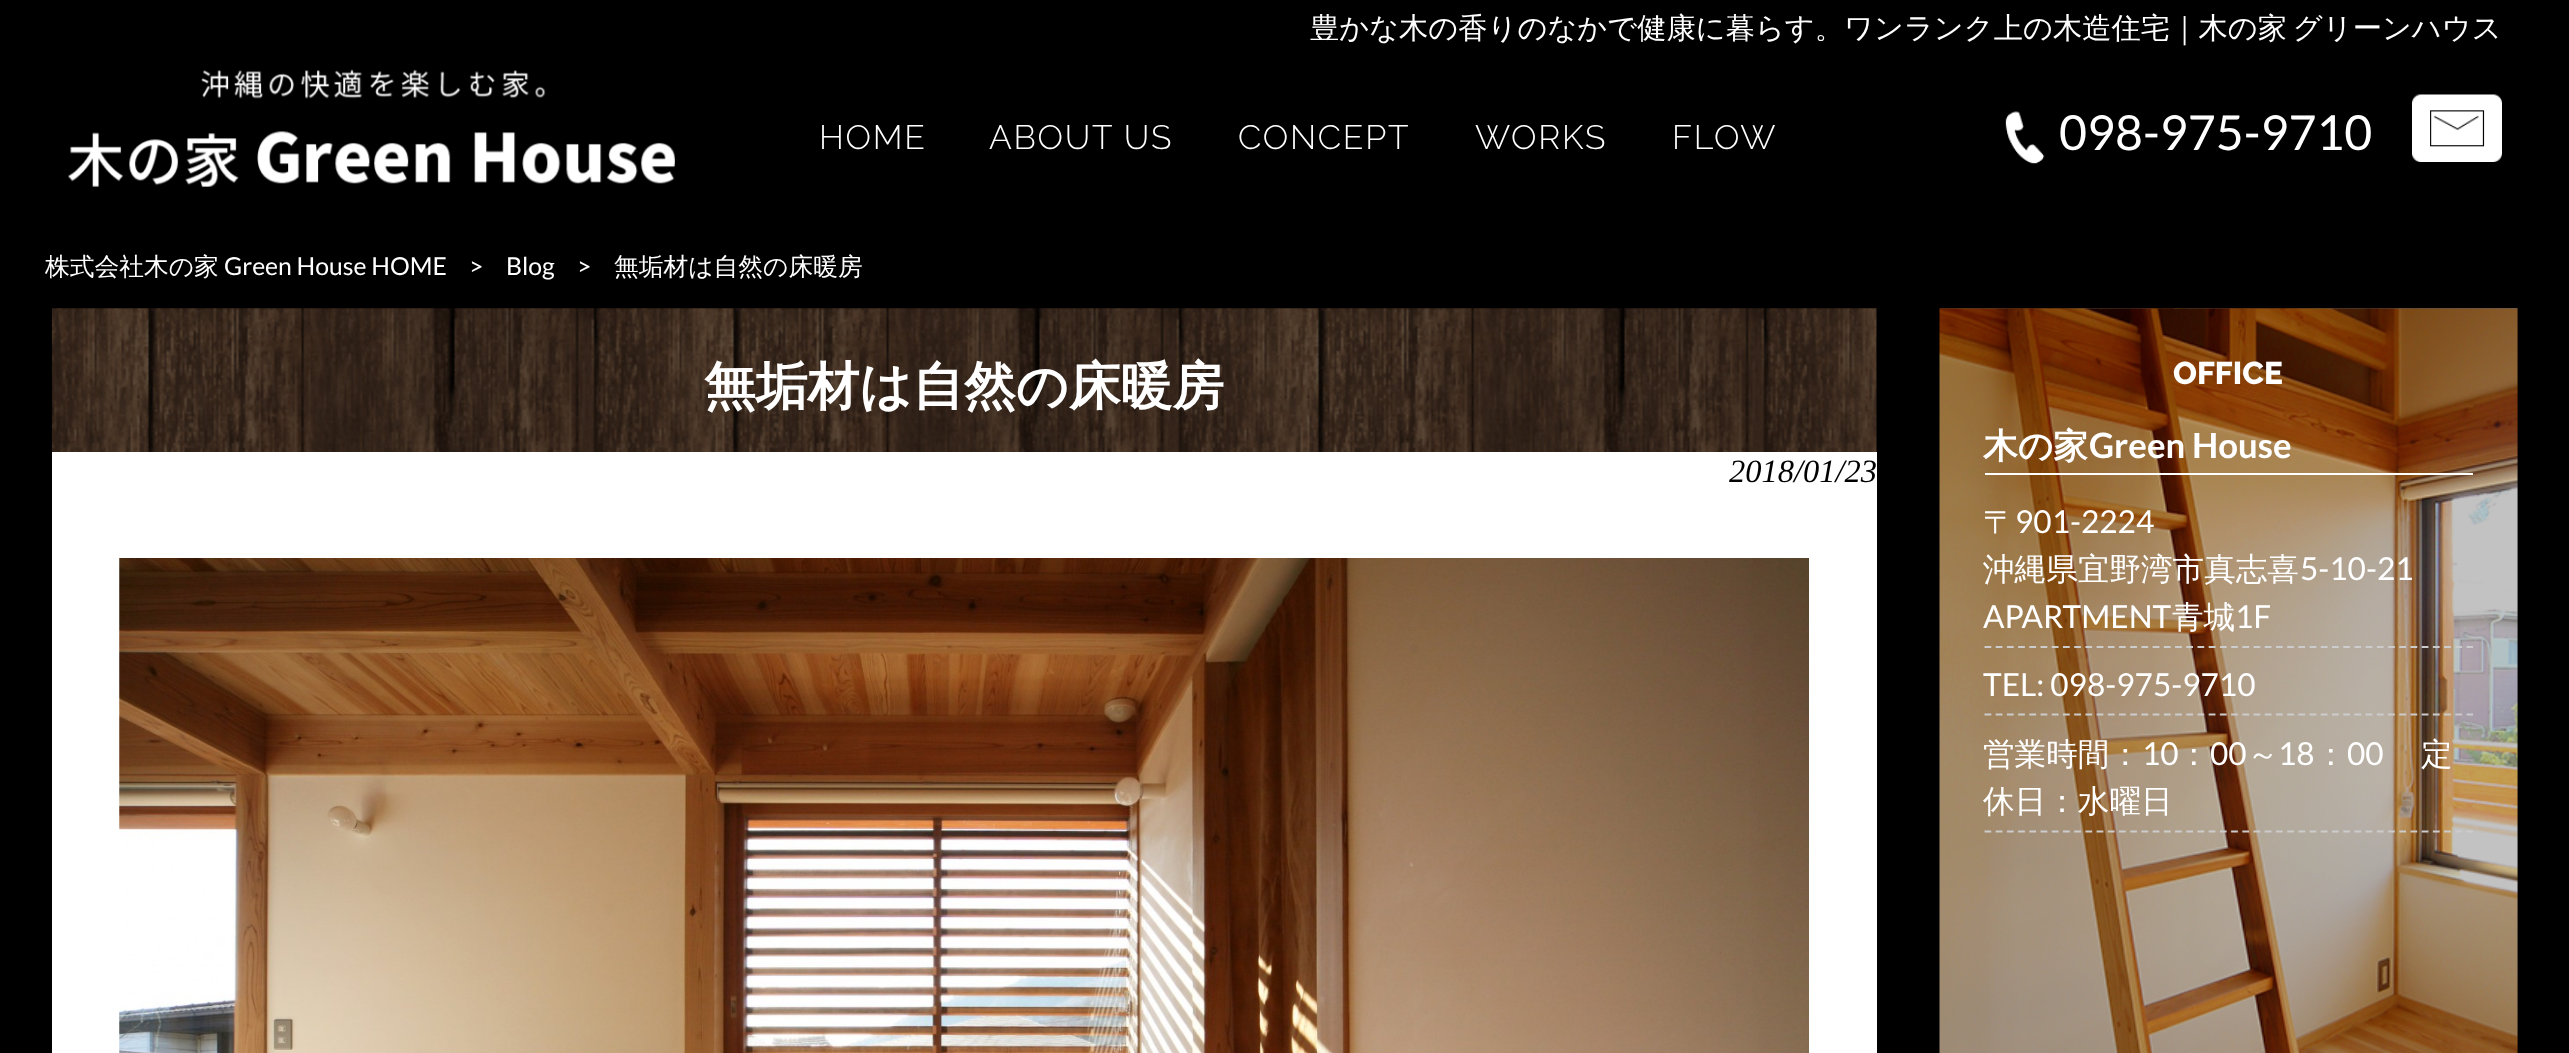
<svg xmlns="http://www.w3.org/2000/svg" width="2569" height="1053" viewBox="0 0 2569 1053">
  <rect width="100%" height="100%" fill="#000"/>
  <image x="68" y="69" width="607" height="118" href="img/1.png"/>
  <image x="2005" y="111" width="40" height="53" href="img/2.png"/>
  <image x="2412" y="94" width="90" height="68" href="img/3.png"/>
  <image x="51" y="308" width="1826" height="144" href="img/4.png"/>
  <path d="M52 452h1825v601H52z" fill="#fff"/>
  <image x="119" y="558" width="1690" height="495" href="img/5.png"/>
  <image x="1939" y="308" width="579" height="745" href="img/6.png"/>
  <path d="M1985 473h488v2H1985z" fill="#fff"/>
  <path d="M1984.5 647H2473" fill="none" stroke="#ccc" stroke-width="2.2" stroke-dasharray="6.75 4.46"/>
  <path d="M1984.5 714.5H2473" fill="none" stroke="#ccc" stroke-width="2.2" stroke-dasharray="6.75 4.46"/>
  <path d="M1984.5 831.5H2473" fill="none" stroke="#ccc" stroke-width="2.2" stroke-dasharray="6.75 4.46"/>
  <g font-family="Raleway" font-size="33.75" font-weight="300" letter-spacing="1.75" fill="#fff">
    <text x="819" y="149">HOME</text>
    <text x="989" y="149">ABOUT US</text>
    <text x="1238" y="149">CONCEPT</text>
    <text x="1475" y="149">WORKS</text>
    <text x="1672" y="149">FLOW</text>
  </g>
  <text x="1310" y="38" word-spacing="-3" font-family="WenQuanYi Zen Hei" font-size="29.25" font-weight="500" fill="#fff">豊かな木の香りのなかで健康に暮らす。ワンランク上の木造住宅｜木の家 グリーンハウス</text>
  <text x="2059" y="150" font-family="Lato" font-size="48.25" fill="#fff">098-975-9710</text>
  <text x="45" y="275" font-family="WenQuanYi Zen Hei" font-size="24.75" font-weight="500" fill="#fff">株式会社木の家</text>
  <g font-family="Lato" font-size="24.75" fill="#fff">
    <text x="224" y="275">Green House HOME</text>
    <text x="469" y="275">&gt;</text>
    <text x="506" y="275">Blog</text>
    <text x="577" y="275">&gt;</text>
  </g>
  <text x="614" y="275" font-family="WenQuanYi Zen Hei" font-size="24.75" font-weight="500" fill="#fff">無垢材は自然の床暖房</text>
  <text x="704" y="404" font-family="WenQuanYi Zen Hei" font-size="51.75" font-weight="bold" fill="#fff">無垢材は自然の床暖房</text>
  <text x="1729" y="482" font-family="Liberation Serif" font-size="32.5" font-style="italic" fill="#000">2018/01/23</text>
  <text x="2173" y="384" font-family="Raleway" font-size="31.5" font-weight="800" fill="#fff">OFFICE</text>
  <text x="1983" y="458" font-family="WenQuanYi Zen Hei" font-size="34.75" font-weight="bold" fill="#fff">木の家</text>
  <text x="2089" y="458" font-family="Lato" font-size="34.75" font-weight="bold" fill="#fff">Green House</text>
  <text x="1983" y="533" font-family="WenQuanYi Zen Hei" font-size="31.6" font-weight="500" fill="#fff">〒</text>
  <text x="2015" y="533" font-family="Lato" font-size="31.6" fill="#fff">901-2224</text>
  <text x="1983" y="580" font-family="WenQuanYi Zen Hei" font-size="31.6" font-weight="500" fill="#fff">沖縄県宜野湾市真志喜</text>
  <g font-family="Lato" font-size="31.6" fill="#fff">
    <text x="2300" y="580">5-10-21</text>
    <text x="1983" y="628">APARTMENT</text>
  </g>
  <text x="2172" y="628" font-family="WenQuanYi Zen Hei" font-size="31.6" font-weight="500" fill="#fff">青城</text>
  <g font-family="Lato" font-size="31.6" fill="#fff">
    <text x="2235" y="628">1F</text>
    <text x="1983" y="696">TEL: 098-975-9710</text>
  </g>
  <text x="1983" y="765" font-family="WenQuanYi Zen Hei" font-size="31.6" font-weight="500" fill="#fff">営業時間：</text>
  <text x="2142" y="765" font-family="Lato" font-size="31.6" fill="#fff">10</text>
  <text x="2178" y="765" font-family="WenQuanYi Zen Hei" font-size="31.6" font-weight="500" fill="#fff">：</text>
  <text x="2210" y="765" font-family="Lato" font-size="31.6" fill="#fff">00</text>
  <text x="2247" y="765" font-family="WenQuanYi Zen Hei" font-size="31.6" font-weight="500" fill="#fff">～</text>
  <text x="2278" y="765" font-family="Lato" font-size="31.6" fill="#fff">18</text>
  <text x="2315" y="765" font-family="WenQuanYi Zen Hei" font-size="31.6" font-weight="500" fill="#fff">：</text>
  <text x="2347" y="765" font-family="Lato" font-size="31.6" fill="#fff">00</text>
  <g font-family="WenQuanYi Zen Hei" font-size="31.6" font-weight="500" fill="#fff">
    <text x="2421" y="765">定</text>
    <text x="1983" y="812">休日：水曜日</text>
  </g>
</svg>
